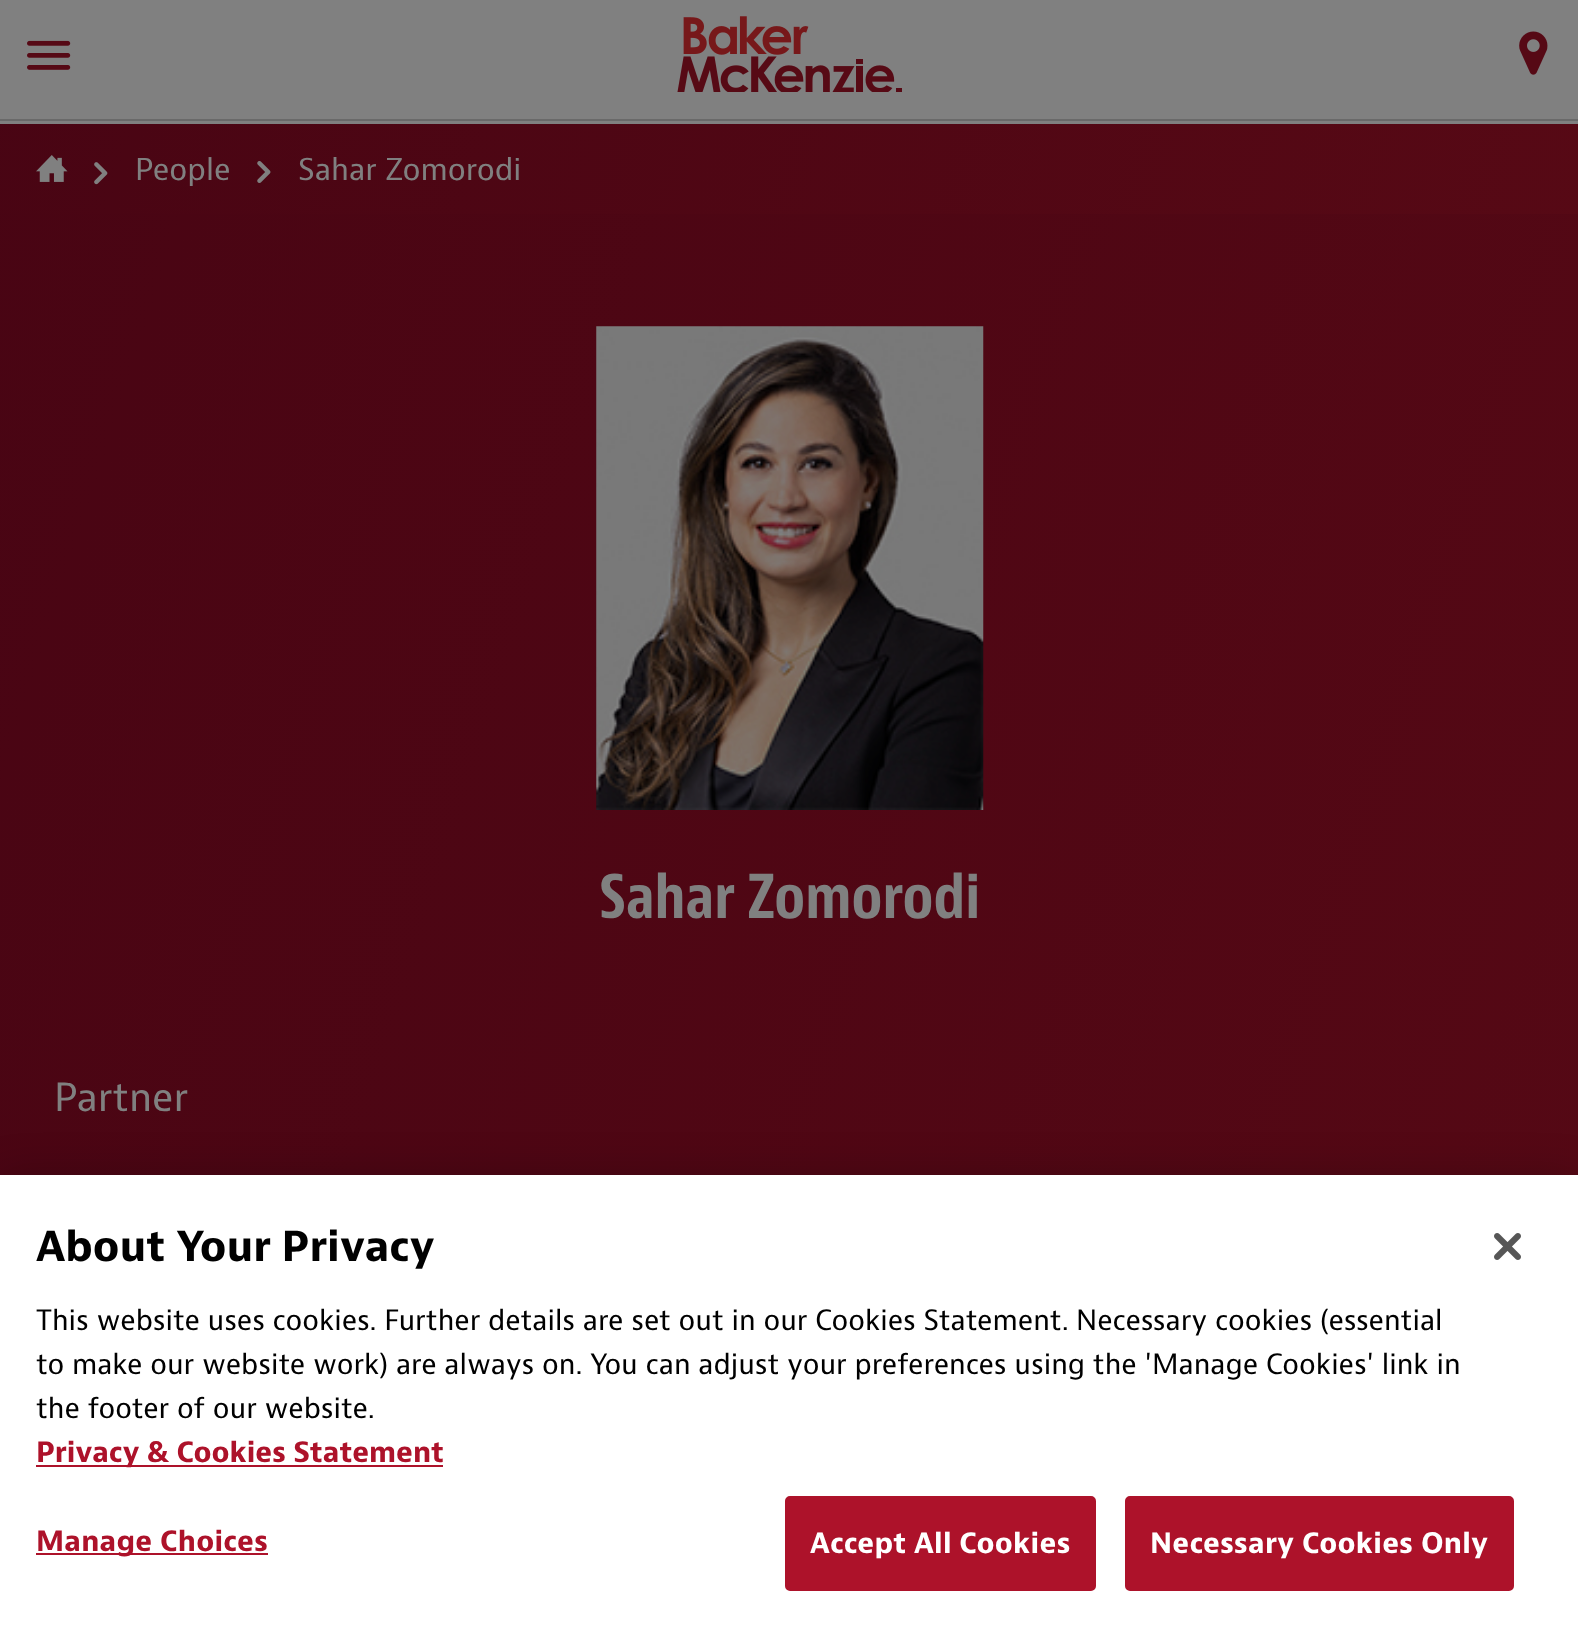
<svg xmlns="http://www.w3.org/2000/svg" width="1578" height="1637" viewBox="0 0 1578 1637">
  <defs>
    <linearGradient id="g1" gradientUnits="userSpaceOnUse" x1="1555" y1="413" x2="-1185" y2="-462"><stop offset="0" stop-color="#570915"/><stop offset="1" stop-color="#3d0112"/></linearGradient>
    <linearGradient id="g2" gradientUnits="userSpaceOnUse" x1="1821" y1="1461" x2="-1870" y2="282"><stop offset="0" stop-color="#570915"/><stop offset="1" stop-color="#3d0112"/></linearGradient>
  </defs>
  <rect width="100%" height="100%" fill="#808080"/>
  <path d="M0 119h1578v2H0z" fill="#696969"/>
  <image x="27" y="40" width="44" height="30" href="img/1.png"/>
  <image x="677" y="16" width="225" height="76" href="img/2.png"/>
  <image x="1519" y="31" width="29" height="44" href="img/3.png"/>
  <path d="M0 124h1578v90H0z" fill="url(#g1)"/>
  <image x="36" y="155" width="32" height="27" href="img/4.png"/>
  <image x="94" y="162" width="14" height="23" href="img/5.png"/>
  <image x="257" y="161" width="14" height="22" href="img/6.png"/>
  <path d="M0 214h1578v961H0z" fill="url(#g2)"/>
  <image x="596" y="326" width="388" height="484" href="img/7.png"/>
  <path d="M0 1175h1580v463H0z" fill="#00000033" filter="blur(20px)"/>
  <path d="M0 1175h1578v462H0z" fill="#fff"/>
  <path d="M36 1465h407v2H36z" fill="#ad122a"/>
  <path d="M36 1553h232v2H36z" fill="#ad122a"/>
  <rect x="786" y="1497" width="309" height="93" rx="4" fill="#ad122a" stroke="#ad122a" stroke-width="2"/>
  <rect x="1126" y="1497" width="387" height="93" rx="4" fill="#ad122a" stroke="#ad122a" stroke-width="2"/>
  <image x="1494" y="1233" width="27" height="27" href="img/8.png"/>
  <g font-family="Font" font-size="31.5" fill="#808080">
    <text x="135" y="180">People</text>
    <text x="298" y="180">Sahar Zomorodi</text>
  </g>
  <text x="599" y="918" font-family="Font" font-size="63" font-weight="bold" fill="#808080">Sahar Zomorodi</text>
  <text x="54" y="1111" font-family="Font" font-size="40.5" fill="#808080">Partner</text>
  <text x="36" y="1261" font-family="'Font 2'" font-size="43.25" font-weight="bold" fill="#000">About Your Privacy</text>
  <g font-family="Font" font-size="29.25" fill="#000">
    <text x="36" y="1330">This website uses cookies. Further details are set out in our Cookies Statement.</text>
    <text x="1076" y="1330">Necessary cookies (essential</text>
    <text x="36" y="1374">to make our website work) are always on. You can adjust your preferences using the 'Manage Cookies' link in</text>
    <text x="36" y="1418">the footer of our website.</text>
  </g>
  <text x="36" y="1462" font-family="'Font 2'" font-size="29.25" font-weight="bold" fill="#ad122a">Privacy &amp; Cookies Statement</text>
  <text x="36" y="1551" font-family="'Font 2'" font-size="29.25" font-weight="bold" letter-spacing="0.25" fill="#ad122a">Manage Choices</text>
  <g font-family="'Font 2'" font-size="29.25" font-weight="bold" letter-spacing="0.25" fill="#fff">
    <text x="810" y="1553">Accept All Cookies</text>
    <text x="1150" y="1553">Necessary Cookies Only</text>
  </g>
</svg>
